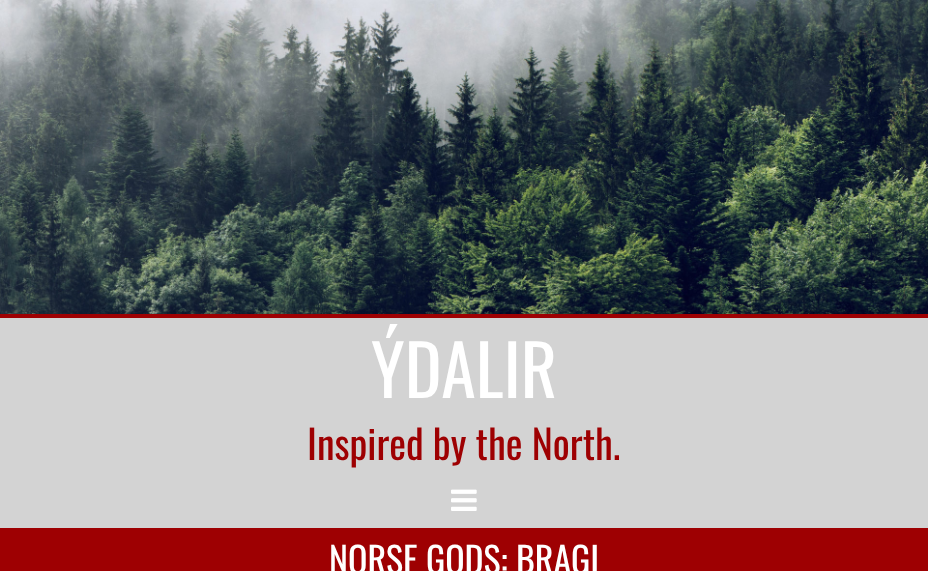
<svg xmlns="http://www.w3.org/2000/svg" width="928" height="571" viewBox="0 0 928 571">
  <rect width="100%" height="100%" fill="#9e0002"/>
  <image x="0" y="0" width="928" height="314" href="img/1.png"/>
  <path d="M0 318h928v210H0z" fill="#d3d3d3"/>
  <image x="451" y="489" width="26" height="22" href="img/2.png"/>
  <text x="371" y="398" font-family="Oswald" font-size="70" fill="#fff">ÝDALIR</text>
  <text x="307" y="460" font-family="Oswald" font-size="40" fill="#9e0002">Inspired by the North.</text>
  <text x="329" y="574" font-family="Oswald" font-size="36" fill="#fff">NORSE GODS: BRAGI</text>
</svg>
